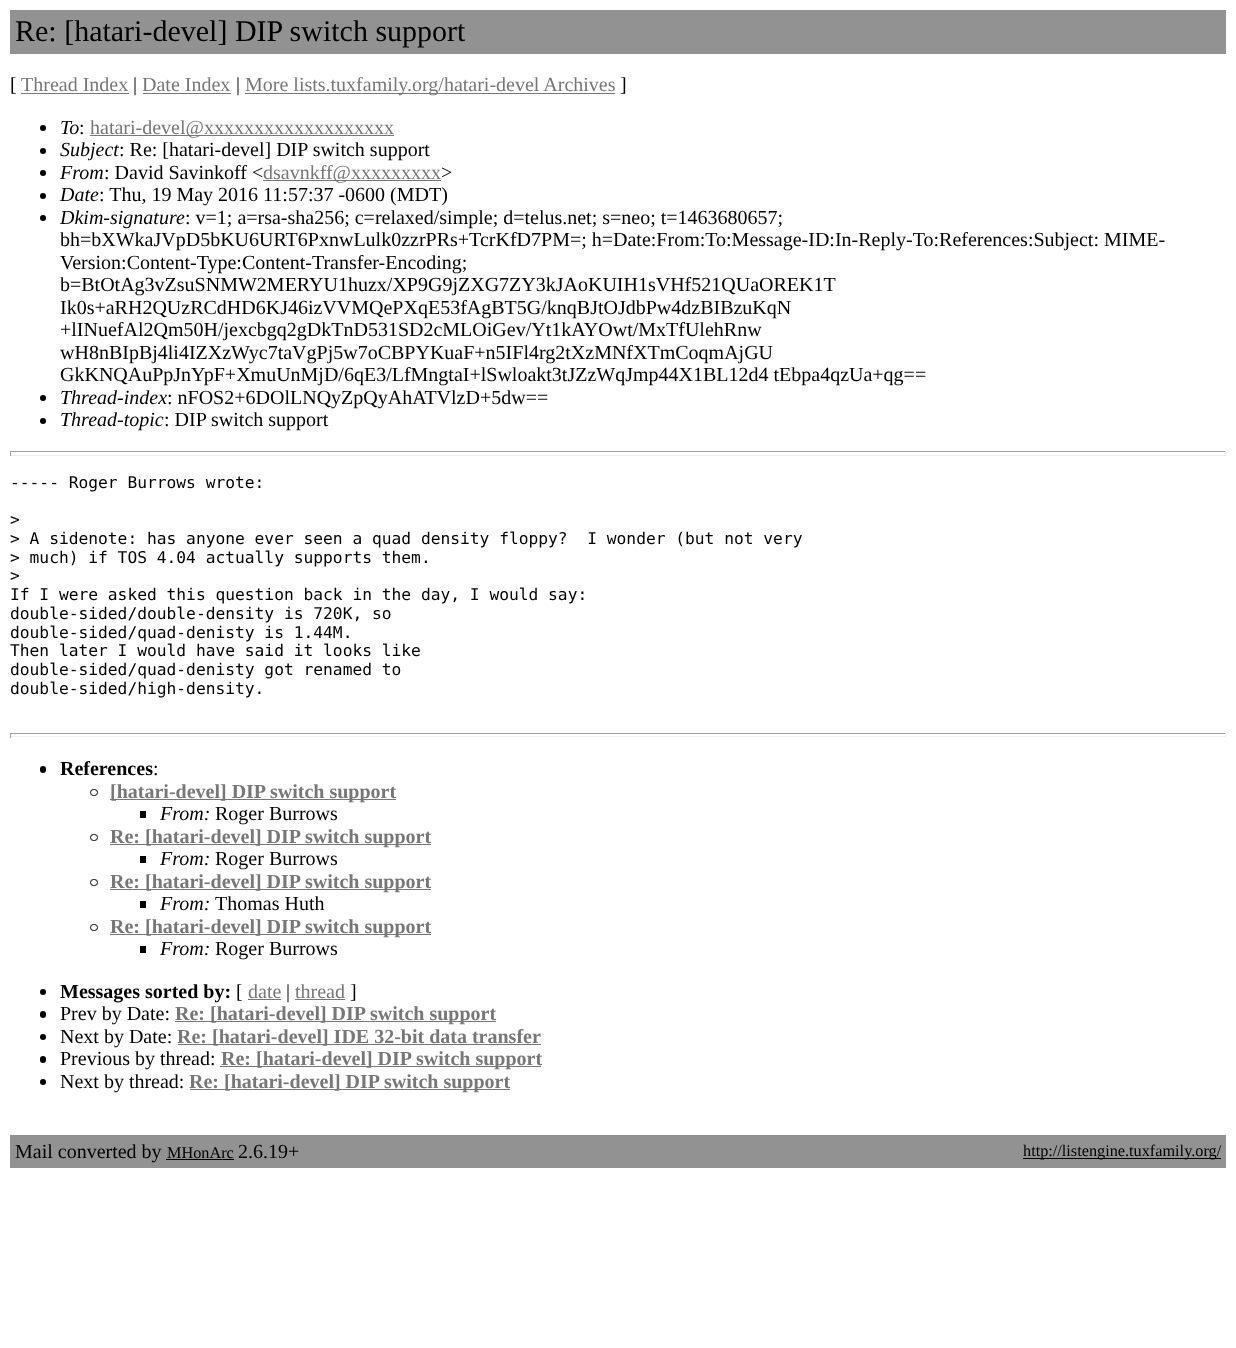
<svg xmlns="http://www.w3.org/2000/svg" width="1236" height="1348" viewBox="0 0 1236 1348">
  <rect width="100%" height="100%" fill="#fff"/>
  <path d="M10 10h1216v44H10z" fill="#929292"/>
  <path d="M21 93h108v1H21z" fill="#777"/>
  <path d="M143 93h88v1H143z" fill="#777"/>
  <path d="M245 93h370v1H245z" fill="#777"/>
  <circle cx="43" cy="128" r="3" fill="#000"/>
  <path d="M90 135h304v1H90z" fill="#777"/>
  <circle cx="43" cy="151" r="3" fill="#000"/>
  <circle cx="43" cy="173" r="3" fill="#000"/>
  <path d="M263 180h178v1H263z" fill="#777"/>
  <circle cx="43" cy="196" r="3" fill="#000"/>
  <circle cx="43" cy="218" r="3" fill="#000"/>
  <circle cx="43" cy="398" r="3" fill="#000"/>
  <circle cx="43" cy="421" r="3" fill="#000"/>
  <path d="M10 451h1216v1H10z" fill="#9f9f9f"/>
  <path d="M1225 451h1v5H1225z" fill="#eee"/>
  <path d="M10 455h1216v1H10z" fill="#eee"/>
  <path d="M10 451h1v5H10z" fill="#9f9f9f"/>
  <path d="M10 733h1216v1H10z" fill="#9f9f9f"/>
  <path d="M1225 733h1v5H1225z" fill="#eee"/>
  <path d="M10 736h1216v1H10z" fill="#eee"/>
  <path d="M10 733h1v5H10z" fill="#9f9f9f"/>
  <rect x="40" y="766" width="6" height="7" rx="3" fill="#000"/>
  <rect x="90.5" y="789.5" width="7" height="6" rx="3" fill="none" stroke="#000"/>
  <path d="M110 799h286v1H110z" fill="#777"/>
  <path d="M140 811h6v7H140z" fill="#000"/>
  <rect x="90.5" y="834.5" width="7" height="6" rx="3" fill="none" stroke="#000"/>
  <path d="M110 844h321v1H110z" fill="#777"/>
  <path d="M140 856h6v7H140z" fill="#000"/>
  <rect x="90.5" y="879.5" width="7" height="6" rx="3" fill="none" stroke="#000"/>
  <path d="M110 889h321v1H110z" fill="#777"/>
  <path d="M140 901h6v7H140z" fill="#000"/>
  <rect x="90.5" y="924.5" width="7" height="6" rx="3" fill="none" stroke="#000"/>
  <path d="M110 934h321v1H110z" fill="#777"/>
  <path d="M140 946h6v7H140z" fill="#000"/>
  <circle cx="43" cy="992" r="3" fill="#000"/>
  <path d="M248 999h33v1H248z" fill="#777"/>
  <path d="M295 999h50v1H295z" fill="#777"/>
  <rect x="40" y="1011" width="6" height="7" rx="3" fill="#000"/>
  <path d="M175 1021h321v1H175z" fill="#777"/>
  <circle cx="43" cy="1037" r="3" fill="#000"/>
  <path d="M178 1044h363v1H178z" fill="#777"/>
  <rect x="40" y="1056" width="6" height="7" rx="3" fill="#000"/>
  <path d="M220 1066h321v1H220z" fill="#777"/>
  <circle cx="43" cy="1082" r="3" fill="#000"/>
  <path d="M190 1089h320v1H190z" fill="#777"/>
  <path d="M10 1135h1216v33H10z" fill="#929292"/>
  <path d="M166 1159h68v1H166z" fill="#000"/>
  <path d="M1023 1158h198v1H1023z" fill="#000"/>
  <text x="15" y="41" font-family="Liberation Serif" font-size="30" fill="#000">Re: [hatari-devel] DIP switch support</text>
  <text x="10" y="91" font-family="Liberation Serif" font-size="20" fill="#000">[</text>
  <text x="21" y="91" font-family="Liberation Serif" font-size="20" fill="#777">Thread Index</text>
  <text x="133" y="91" font-family="Liberation Serif" font-size="20" fill="#000">|</text>
  <text x="142" y="91" font-family="Liberation Serif" font-size="20" fill="#777">Date Index</text>
  <text x="236" y="91" font-family="Liberation Serif" font-size="20" fill="#000">|</text>
  <text x="245" y="91" font-family="Liberation Serif" font-size="20" fill="#777">More lists.tuxfamily.org/hatari-devel Archives</text>
  <text x="620" y="91" font-family="Liberation Serif" font-size="20" fill="#000">]</text>
  <text x="60" y="134" font-family="Liberation Serif" font-size="20" font-style="italic" fill="#000">To</text>
  <text x="79" y="134" font-family="Liberation Serif" font-size="20" fill="#000">:</text>
  <text x="90" y="134" font-family="Liberation Serif" font-size="20" fill="#777">hatari-devel@xxxxxxxxxxxxxxxxxxx</text>
  <text x="60" y="156" font-family="Liberation Serif" font-size="20" font-style="italic" fill="#000">Subject</text>
  <text x="119" y="156" font-family="Liberation Serif" font-size="20" fill="#000">: Re: [hatari-devel] DIP switch support</text>
  <text x="60" y="179" font-family="Liberation Serif" font-size="20" font-style="italic" fill="#000">From</text>
  <text x="104" y="179" font-family="Liberation Serif" font-size="20" fill="#000">: David Savinkoff &lt;</text>
  <text x="263" y="179" font-family="Liberation Serif" font-size="20" fill="#777">dsavnkff@xxxxxxxxx</text>
  <text x="441" y="179" font-family="Liberation Serif" font-size="20" fill="#000">&gt;</text>
  <text x="60" y="201" font-family="Liberation Serif" font-size="20" font-style="italic" fill="#000">Date</text>
  <text x="99" y="201" font-family="Liberation Serif" font-size="20" fill="#000">: Thu, 19 May 2016 11:57:37 -0600 (MDT)</text>
  <text x="60" y="224" font-family="Liberation Serif" font-size="20" font-style="italic" fill="#000">Dkim-signature</text>
  <g font-family="Liberation Serif" font-size="20" fill="#000">
    <text x="185" y="224">: v=1; a=rsa-sha256; c=relaxed/simple; d=telus.net; s=neo; t=1463680657;</text>
    <text x="60" y="246">bh=bXWkaJVpD5bKU6URT6PxnwLulk0zzrPRs+TcrKfD7PM=; h=Date:From:To:Message-ID:In-Reply-To:References:Subject: MIME-</text>
    <text x="60" y="269">Version:Content-Type:Content-Transfer-Encoding;</text>
    <text x="60" y="291">b=BtOtAg3vZsuSNMW2MERYU1huzx/XP9G9jZXG7ZY3kJAoKUIH1sVHf521QUaOREK1T</text>
    <text x="60" y="314">Ik0s+aRH2QUzRCdHD6KJ46izVVMQePXqE53fAgBT5G/knqBJtOJdbPw4dzBIBzuKqN</text>
    <text x="60" y="336">+lINuefAl2Qm50H/jexcbgq2gDkTnD531SD2cMLOiGev/Yt1kAYOwt/MxTfUlehRnw</text>
    <text x="60" y="359">wH8nBIpBj4li4IZXzWyc7taVgPj5w7oCBPYKuaF+n5IFl4rg2tXzMNfXTmCoqmAjGU</text>
    <text x="60" y="381">GkKNQAuPpJnYpF+XmuUnMjD/6qE3/LfMngtaI+lSwloakt3tJZzWqJmp44X1BL12d4 tEbpa4qzUa+qg==</text>
  </g>
  <text x="60" y="404" font-family="Liberation Serif" font-size="20" font-style="italic" fill="#000">Thread-index</text>
  <text x="167" y="404" font-family="Liberation Serif" font-size="20" fill="#000">: nFOS2+6DOlLNQyZpQyAhATVlzD+5dw==</text>
  <text x="60" y="426" font-family="Liberation Serif" font-size="20" font-style="italic" fill="#000">Thread-topic</text>
  <text x="164" y="426" font-family="Liberation Serif" font-size="20" fill="#000">: DIP switch support</text>
  <g font-family="DejaVu Sans Mono" font-size="16.25" fill="#000">
    <text x="10" y="488">----- Roger Burrows wrote:</text>
    <text x="10" y="525">&gt;</text>
    <text x="10" y="544" xml:space="preserve">&gt; A sidenote: has anyone ever seen a quad density floppy?  I wonder (but not very</text>
    <text x="10" y="563">&gt; much) if TOS 4.04 actually supports them.</text>
    <text x="10" y="581">&gt;</text>
    <text x="10" y="600">If I were asked this question back in the day, I would say:</text>
    <text x="10" y="619">double-sided/double-density is 720K, so</text>
    <text x="10" y="638">double-sided/quad-denisty is 1.44M.</text>
    <text x="10" y="656">Then later I would have said it looks like</text>
    <text x="10" y="675">double-sided/quad-denisty got renamed to</text>
    <text x="10" y="694">double-sided/high-density.</text>
  </g>
  <text x="60" y="775" font-family="Liberation Serif" font-size="20" font-weight="bold" fill="#000">References</text>
  <text x="153" y="775" font-family="Liberation Serif" font-size="20" fill="#000">:</text>
  <text x="110" y="798" font-family="Liberation Serif" font-size="20" font-weight="bold" fill="#777">[hatari-devel] DIP switch support</text>
  <text x="160" y="820" font-family="Liberation Serif" font-size="20" font-style="italic" fill="#000">From:</text>
  <text x="215" y="820" font-family="Liberation Serif" font-size="20" fill="#000">Roger Burrows</text>
  <text x="110" y="843" font-family="Liberation Serif" font-size="20" font-weight="bold" fill="#777">Re: [hatari-devel] DIP switch support</text>
  <text x="160" y="865" font-family="Liberation Serif" font-size="20" font-style="italic" fill="#000">From:</text>
  <text x="215" y="865" font-family="Liberation Serif" font-size="20" fill="#000">Roger Burrows</text>
  <text x="110" y="888" font-family="Liberation Serif" font-size="20" font-weight="bold" fill="#777">Re: [hatari-devel] DIP switch support</text>
  <text x="160" y="910" font-family="Liberation Serif" font-size="20" font-style="italic" fill="#000">From:</text>
  <text x="215" y="910" font-family="Liberation Serif" font-size="20" fill="#000">Thomas Huth</text>
  <text x="110" y="933" font-family="Liberation Serif" font-size="20" font-weight="bold" fill="#777">Re: [hatari-devel] DIP switch support</text>
  <text x="160" y="955" font-family="Liberation Serif" font-size="20" font-style="italic" fill="#000">From:</text>
  <text x="215" y="955" font-family="Liberation Serif" font-size="20" fill="#000">Roger Burrows</text>
  <text x="60" y="998" font-family="Liberation Serif" font-size="20" font-weight="bold" fill="#000">Messages sorted by:</text>
  <text x="236" y="998" font-family="Liberation Serif" font-size="20" fill="#000">[</text>
  <text x="248" y="998" font-family="Liberation Serif" font-size="20" fill="#777">date</text>
  <text x="286" y="998" font-family="Liberation Serif" font-size="20" fill="#000">|</text>
  <text x="295" y="998" font-family="Liberation Serif" font-size="20" fill="#777">thread</text>
  <g font-family="Liberation Serif" font-size="20" fill="#000">
    <text x="350" y="998">]</text>
    <text x="60" y="1020">Prev by Date:</text>
  </g>
  <text x="175" y="1020" font-family="Liberation Serif" font-size="20" font-weight="bold" fill="#777">Re: [hatari-devel] DIP switch support</text>
  <text x="60" y="1043" font-family="Liberation Serif" font-size="20" fill="#000">Next by Date:</text>
  <text x="177" y="1043" font-family="Liberation Serif" font-size="20" font-weight="bold" fill="#777">Re: [hatari-devel] IDE 32-bit data transfer</text>
  <text x="60" y="1065" font-family="Liberation Serif" font-size="20" fill="#000">Previous by thread:</text>
  <text x="221" y="1065" font-family="Liberation Serif" font-size="20" font-weight="bold" fill="#777">Re: [hatari-devel] DIP switch support</text>
  <text x="60" y="1088" font-family="Liberation Serif" font-size="20" fill="#000">Next by thread:</text>
  <text x="189" y="1088" font-family="Liberation Serif" font-size="20" font-weight="bold" fill="#777">Re: [hatari-devel] DIP switch support</text>
  <text x="15" y="1158" font-family="Liberation Serif" font-size="20" fill="#000">Mail converted by</text>
  <text x="167" y="1158" font-family="Liberation Serif" font-size="16.25" fill="#000">MHonArc</text>
  <text x="238" y="1158" font-family="Liberation Serif" font-size="20" fill="#000">2.6.19+</text>
  <text x="1023" y="1156" font-family="Liberation Serif" font-size="16.25" fill="#000">http://listengine.tuxfamily.org/</text>
</svg>
